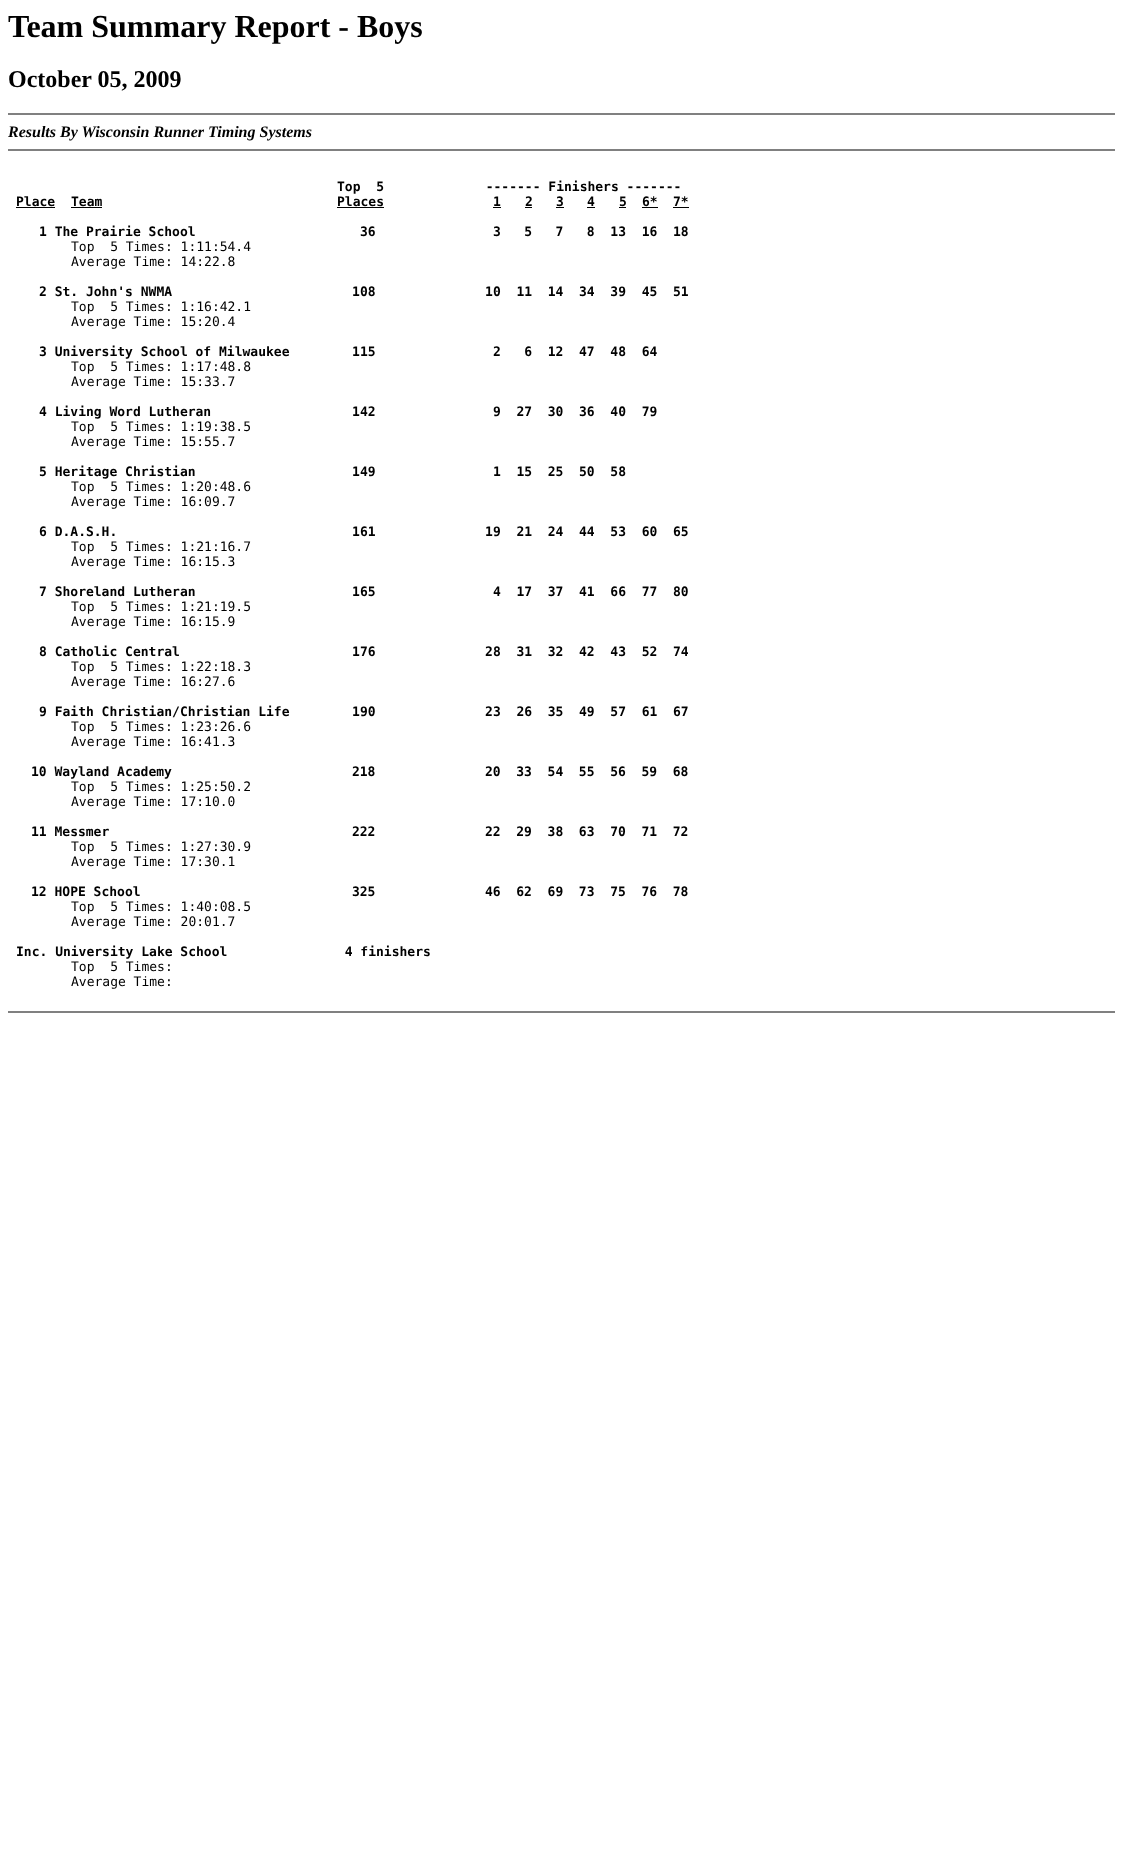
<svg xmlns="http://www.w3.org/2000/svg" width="1123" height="1863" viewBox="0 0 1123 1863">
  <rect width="100%" height="100%" fill="#fff"/>
  <path d="M8 113h1107v2H8z" fill="#808080"/>
  <path d="M8 149h1107v2H8z" fill="#808080"/>
  <path d="M16 207h39v1H16z" fill="#000"/>
  <path d="M71 207h31v1H71z" fill="#000"/>
  <path d="M337 207h47v1H337z" fill="#000"/>
  <path d="M493 207h8v1H493z" fill="#000"/>
  <path d="M525 207h7v1H525z" fill="#000"/>
  <path d="M556 207h8v1H556z" fill="#000"/>
  <path d="M587 207h8v1H587z" fill="#000"/>
  <path d="M619 207h7v1H619z" fill="#000"/>
  <path d="M642 207h16v1H642z" fill="#000"/>
  <path d="M673 207h16v1H673z" fill="#000"/>
  <path d="M8 1011h1107v2H8z" fill="#808080"/>
  <text x="8" y="37" font-family="Liberation Serif" font-size="32" font-weight="bold" fill="#000">Team Summary Report - Boys</text>
  <text x="8" y="87" font-family="Liberation Serif" font-size="24" font-weight="bold" fill="#000">October 05, 2009</text>
  <text x="8" y="137" font-family="Liberation Serif" font-size="16" font-weight="bold" font-style="italic" fill="#000">Results By Wisconsin Runner Timing Systems</text>
  <g font-family="DejaVu Sans Mono" font-size="13" font-weight="bold" fill="#000">
    <text x="337" y="191" xml:space="preserve">Top  5             ------- Finishers -------</text>
    <text x="16" y="206">Place</text>
    <text x="71" y="206">Team</text>
    <text x="337" y="206">Places</text>
    <text x="493" y="206">1</text>
    <text x="525" y="206">2</text>
    <text x="556" y="206">3</text>
    <text x="587" y="206">4</text>
    <text x="619" y="206">5</text>
    <text x="642" y="206">6*</text>
    <text x="673" y="206">7*</text>
    <text x="39" y="236" xml:space="preserve">1 The Prairie School                     36               3   5   7   8  13  16  18</text>
  </g>
  <g font-family="DejaVu Sans Mono" font-size="13" fill="#000">
    <text x="71" y="251" xml:space="preserve">Top  5 Times: 1:11:54.4</text>
    <text x="71" y="266">Average Time: 14:22.8</text>
  </g>
  <text x="39" y="296" font-family="DejaVu Sans Mono" font-size="13" font-weight="bold" fill="#000" xml:space="preserve">2 St. John's NWMA                       108              10  11  14  34  39  45  51</text>
  <g font-family="DejaVu Sans Mono" font-size="13" fill="#000">
    <text x="71" y="311" xml:space="preserve">Top  5 Times: 1:16:42.1</text>
    <text x="71" y="326">Average Time: 15:20.4</text>
  </g>
  <text x="39" y="356" font-family="DejaVu Sans Mono" font-size="13" font-weight="bold" fill="#000" xml:space="preserve">3 University School of Milwaukee        115               2   6  12  47  48  64</text>
  <g font-family="DejaVu Sans Mono" font-size="13" fill="#000">
    <text x="71" y="371" xml:space="preserve">Top  5 Times: 1:17:48.8</text>
    <text x="71" y="386">Average Time: 15:33.7</text>
  </g>
  <text x="39" y="416" font-family="DejaVu Sans Mono" font-size="13" font-weight="bold" fill="#000" xml:space="preserve">4 Living Word Lutheran                  142               9  27  30  36  40  79</text>
  <g font-family="DejaVu Sans Mono" font-size="13" fill="#000">
    <text x="71" y="431" xml:space="preserve">Top  5 Times: 1:19:38.5</text>
    <text x="71" y="446">Average Time: 15:55.7</text>
  </g>
  <text x="39" y="476" font-family="DejaVu Sans Mono" font-size="13" font-weight="bold" fill="#000" xml:space="preserve">5 Heritage Christian                    149               1  15  25  50  58</text>
  <g font-family="DejaVu Sans Mono" font-size="13" fill="#000">
    <text x="71" y="491" xml:space="preserve">Top  5 Times: 1:20:48.6</text>
    <text x="71" y="506">Average Time: 16:09.7</text>
  </g>
  <text x="39" y="536" font-family="DejaVu Sans Mono" font-size="13" font-weight="bold" fill="#000" xml:space="preserve">6 D.A.S.H.                              161              19  21  24  44  53  60  65</text>
  <g font-family="DejaVu Sans Mono" font-size="13" fill="#000">
    <text x="71" y="551" xml:space="preserve">Top  5 Times: 1:21:16.7</text>
    <text x="71" y="566">Average Time: 16:15.3</text>
  </g>
  <text x="39" y="596" font-family="DejaVu Sans Mono" font-size="13" font-weight="bold" fill="#000" xml:space="preserve">7 Shoreland Lutheran                    165               4  17  37  41  66  77  80</text>
  <g font-family="DejaVu Sans Mono" font-size="13" fill="#000">
    <text x="71" y="611" xml:space="preserve">Top  5 Times: 1:21:19.5</text>
    <text x="71" y="626">Average Time: 16:15.9</text>
  </g>
  <text x="39" y="656" font-family="DejaVu Sans Mono" font-size="13" font-weight="bold" fill="#000" xml:space="preserve">8 Catholic Central                      176              28  31  32  42  43  52  74</text>
  <g font-family="DejaVu Sans Mono" font-size="13" fill="#000">
    <text x="71" y="671" xml:space="preserve">Top  5 Times: 1:22:18.3</text>
    <text x="71" y="686">Average Time: 16:27.6</text>
  </g>
  <text x="39" y="716" font-family="DejaVu Sans Mono" font-size="13" font-weight="bold" fill="#000" xml:space="preserve">9 Faith Christian/Christian Life        190              23  26  35  49  57  61  67</text>
  <g font-family="DejaVu Sans Mono" font-size="13" fill="#000">
    <text x="71" y="731" xml:space="preserve">Top  5 Times: 1:23:26.6</text>
    <text x="71" y="746">Average Time: 16:41.3</text>
  </g>
  <text x="31" y="776" font-family="DejaVu Sans Mono" font-size="13" font-weight="bold" fill="#000" xml:space="preserve">10 Wayland Academy                       218              20  33  54  55  56  59  68</text>
  <g font-family="DejaVu Sans Mono" font-size="13" fill="#000">
    <text x="71" y="791" xml:space="preserve">Top  5 Times: 1:25:50.2</text>
    <text x="71" y="806">Average Time: 17:10.0</text>
  </g>
  <text x="31" y="836" font-family="DejaVu Sans Mono" font-size="13" font-weight="bold" fill="#000" xml:space="preserve">11 Messmer                               222              22  29  38  63  70  71  72</text>
  <g font-family="DejaVu Sans Mono" font-size="13" fill="#000">
    <text x="71" y="851" xml:space="preserve">Top  5 Times: 1:27:30.9</text>
    <text x="71" y="866">Average Time: 17:30.1</text>
  </g>
  <text x="31" y="896" font-family="DejaVu Sans Mono" font-size="13" font-weight="bold" fill="#000" xml:space="preserve">12 HOPE School                           325              46  62  69  73  75  76  78</text>
  <g font-family="DejaVu Sans Mono" font-size="13" fill="#000">
    <text x="71" y="911" xml:space="preserve">Top  5 Times: 1:40:08.5</text>
    <text x="71" y="926">Average Time: 20:01.7</text>
  </g>
  <text x="16" y="956" font-family="DejaVu Sans Mono" font-size="13" font-weight="bold" fill="#000" xml:space="preserve">Inc. University Lake School               4 finishers</text>
  <g font-family="DejaVu Sans Mono" font-size="13" fill="#000">
    <text x="71" y="971" xml:space="preserve">Top  5 Times:</text>
    <text x="71" y="986">Average Time:</text>
  </g>
</svg>
